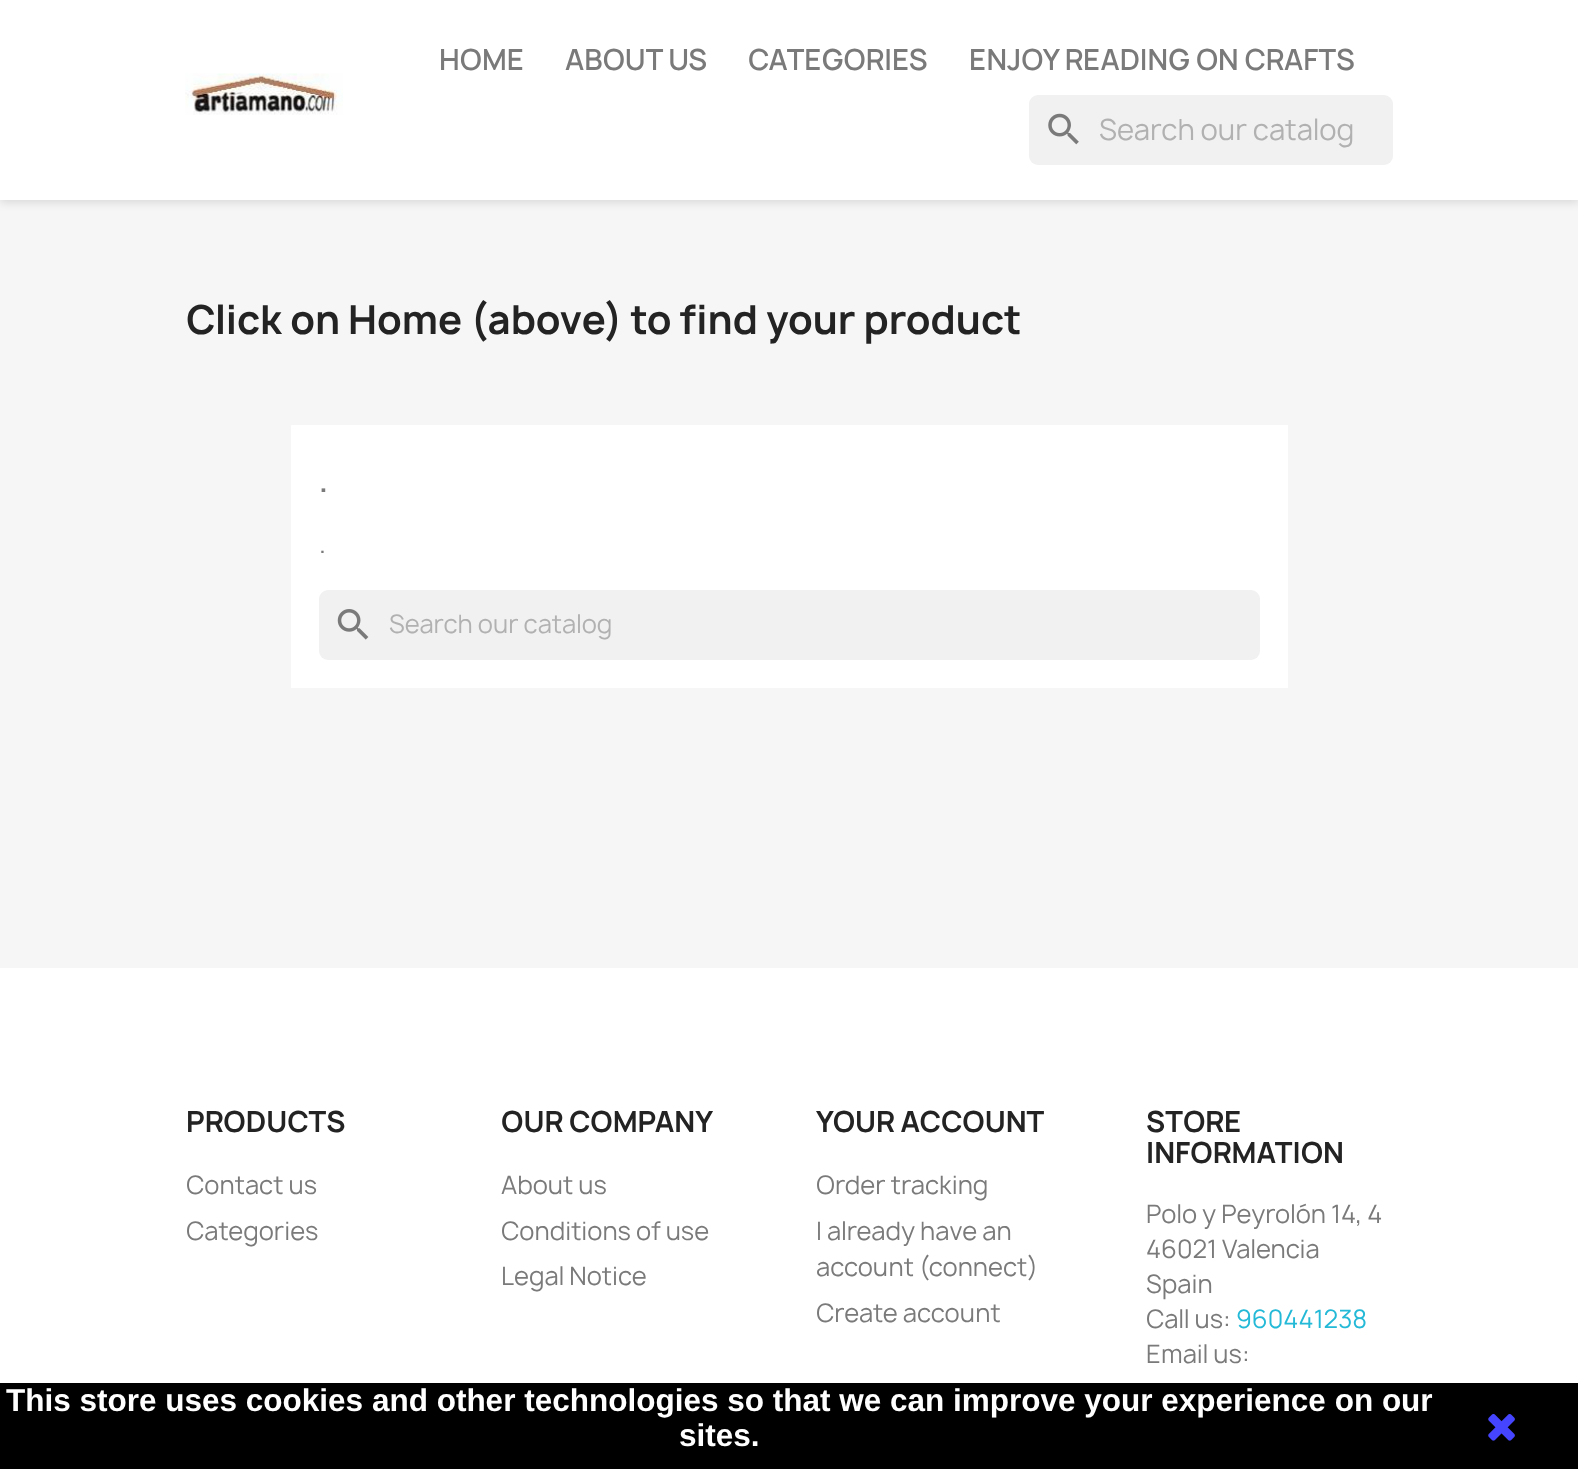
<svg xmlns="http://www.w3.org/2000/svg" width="1578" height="1469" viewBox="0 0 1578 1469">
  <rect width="100%" height="100%" fill="#fff"/>
  <path d="M0 200h1578v768H0z" fill="#f6f6f6"/>
  <path d="M0 -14h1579v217H0z" fill="#0000001c" filter="blur(4.5px)"/>
  <path d="M0 0h1578v200H0z" fill="#fff"/>
  <image x="185" y="73" width="158" height="42" href="img/1.png"/>
  <rect x="1029" y="95" width="364" height="70" rx="9" fill="#f1f1f1"/>
  <image x="1048" y="113" width="31" height="32" href="img/2.png"/>
  <path d="M291 425h997v263H291z" fill="#fff"/>
  <rect x="319" y="590" width="941" height="70" rx="9" fill="#f1f1f1"/>
  <image x="337" y="609" width="32" height="31" href="img/3.png"/>
  <path d="M0 1383h1578v86H0z" fill="#000"/>
  <image x="1488" y="1414" width="27" height="27" href="img/4.png"/>
  <g font-family="Manrope" font-size="28" font-weight="600" fill="#7a7a7a">
    <text x="439" y="70">HOME</text>
    <text x="565" y="70">ABOUT US</text>
    <text x="748" y="70">CATEGORIES</text>
    <text x="969" y="70">ENJOY READING ON CRAFTS</text>
  </g>
  <text x="1099" y="140" font-family="Manrope" font-size="28" fill="#b1b1b1">Search our catalog</text>
  <text x="186" y="334" font-family="Manrope" font-size="38.5" font-weight="bold" fill="#232323">Click on Home (above) to find your product</text>
  <text x="319" y="492" font-family="Manrope" font-size="28" font-weight="bold" fill="#7a7a7a">.</text>
  <text x="319" y="553" font-family="Manrope" font-size="26" fill="#7a7a7a">.</text>
  <text x="389" y="633" font-family="Manrope" font-size="24.5" fill="#b1b1b1">Search our catalog</text>
  <text x="186" y="1132" font-family="Manrope" font-size="28" font-weight="bold" fill="#232323">PRODUCTS</text>
  <g font-family="Manrope" font-size="24.5" fill="#7a7a7a">
    <text x="186" y="1194">Contact us</text>
    <text x="186" y="1240">Categories</text>
  </g>
  <text x="501" y="1132" font-family="Manrope" font-size="28" font-weight="bold" fill="#232323">OUR COMPANY</text>
  <g font-family="Manrope" font-size="24.5" fill="#7a7a7a">
    <text x="501" y="1194">About us</text>
    <text x="501" y="1240">Conditions of use</text>
    <text x="501" y="1285">Legal Notice</text>
  </g>
  <text x="816" y="1132" font-family="Manrope" font-size="28" font-weight="bold" fill="#232323">YOUR ACCOUNT</text>
  <g font-family="Manrope" font-size="24.5" fill="#7a7a7a">
    <text x="816" y="1194">Order tracking</text>
    <text x="816" y="1240">I already have an</text>
    <text x="816" y="1276">account (connect)</text>
    <text x="816" y="1322">Create account</text>
  </g>
  <g font-family="Manrope" font-size="28" font-weight="bold" fill="#232323">
    <text x="1146" y="1132">STORE</text>
    <text x="1146" y="1163">INFORMATION</text>
  </g>
  <g font-family="Manrope" font-size="24.5" fill="#7a7a7a">
    <text x="1146" y="1223">Polo y Peyrolón 14, 4</text>
    <text x="1146" y="1258">46021 Valencia</text>
    <text x="1146" y="1293">Spain</text>
    <text x="1146" y="1328">Call us:</text>
  </g>
  <text x="1236" y="1328" font-family="Manrope" font-size="24.5" fill="#24b9d7">960441238</text>
  <text x="1146" y="1363" font-family="Manrope" font-size="24.5" fill="#7a7a7a">Email us:</text>
  <g font-family="Liberation Sans" font-size="31.5" font-weight="bold" fill="#fff">
    <text x="6" y="1411">This store uses cookies and other technologies so that we can improve your experience on our</text>
    <text x="679" y="1446">sites.</text>
  </g>
</svg>
